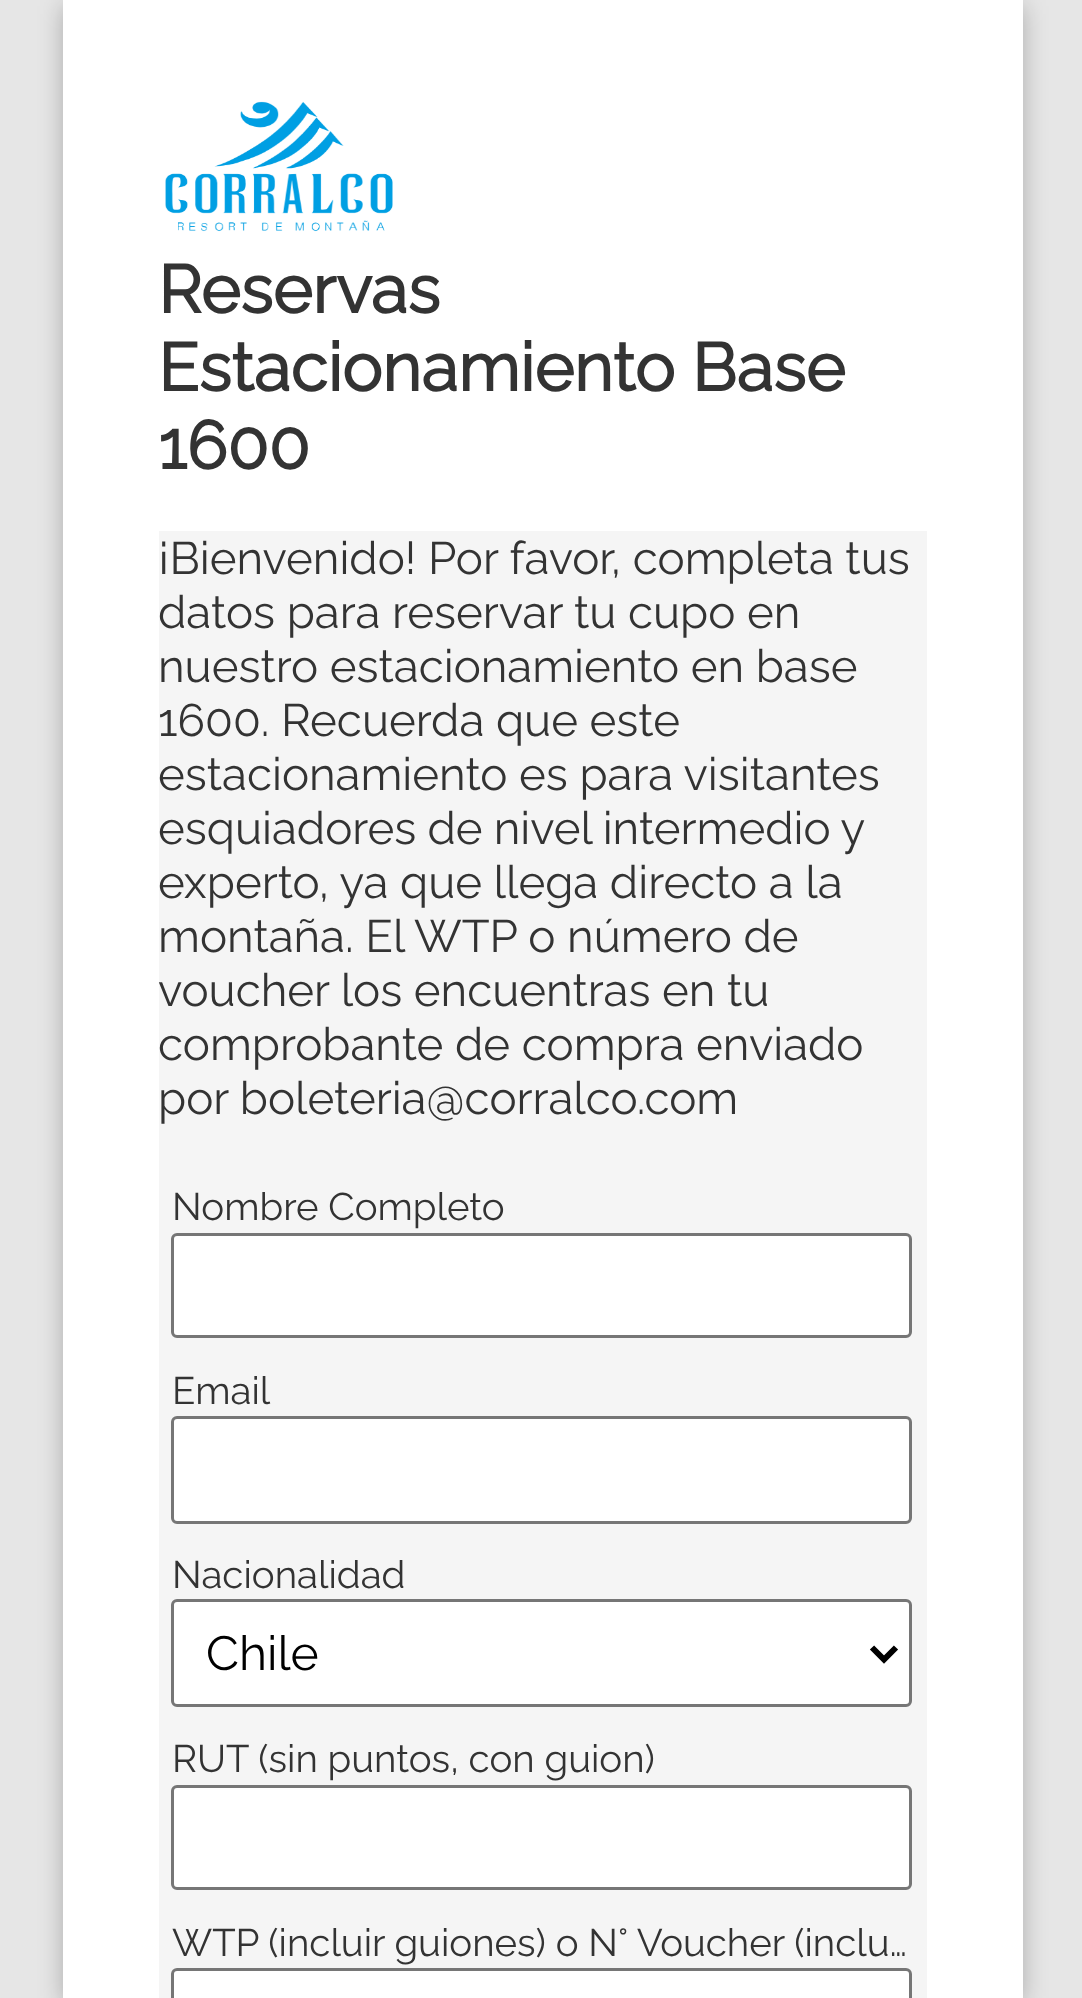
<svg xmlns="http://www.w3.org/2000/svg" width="1082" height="1998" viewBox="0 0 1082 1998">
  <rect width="100%" height="100%" fill="#e6e6e6"/>
  <path d="M63 6h960v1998H63z" fill="#00000040" filter="blur(12px)"/>
  <path d="M63 0h960v1998H63z" fill="#fff"/>
  <image x="165" y="101" width="228" height="131" href="img/1.png"/>
  <path d="M159 531h768v1467H159z" fill="#f5f5f5"/>
  <rect x="172.5" y="1234.5" width="738" height="102" rx="4.5" fill="#fff" stroke="#767676" stroke-width="3"/>
  <rect x="172.5" y="1417.5" width="738" height="105" rx="4.5" fill="#fff" stroke="#767676" stroke-width="3"/>
  <rect x="172.5" y="1600.5" width="738" height="105" rx="4.5" fill="#fff" stroke="#767676" stroke-width="3"/>
  <path d="M872 1647.5L884 1659.5L896 1647.5" fill="none" stroke="#000" stroke-width="6"/>
  <rect x="172.5" y="1786.5" width="738" height="102" rx="4.5" fill="#fff" stroke="#767676" stroke-width="3"/>
  <path d="M177 1968H906C909.5 1968 912 1970.5 912 1974V1998H171V1974C171 1970.5 173.5 1968 177 1968Z" fill="#fff"/>
  <rect x="172.5" y="1969.5" width="738" height="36" rx="4.5" fill="none" stroke="#767676" stroke-width="3"/>
  <g font-family="Raleway" font-size="67.25" font-weight="bold" fill="#333">
    <text x="158" y="313">Reservas</text>
    <text x="158" y="391">Estacionamiento Base</text>
    <text x="158" y="469">1600</text>
  </g>
  <g font-family="Raleway" font-size="45.6" font-weight="100" fill="#333">
    <text x="158" y="574">¡Bienvenido! Por favor, completa tus</text>
    <text x="158" y="628">datos para reservar tu cupo en</text>
    <text x="158" y="682">nuestro estacionamiento en base</text>
    <text x="158" y="736">1600. Recuerda que este</text>
    <text x="158" y="790">estacionamiento es para visitantes</text>
    <text x="158" y="844" word-spacing="-0.5">esquiadores de nivel intermedio y</text>
    <text x="158" y="898">experto, ya que llega directo a la</text>
    <text x="158" y="952">montaña. El WTP o número de</text>
    <text x="158" y="1006">voucher los encuentras en tu</text>
    <text x="158" y="1060">comprobante de compra enviado</text>
    <text x="158" y="1114">por boleteria@corralco.com</text>
  </g>
  <g font-family="Raleway" font-size="38.4" font-weight="100" fill="#333">
    <text x="172" y="1220">Nombre Completo</text>
    <text x="172" y="1404">Email</text>
    <text x="172" y="1588">Nacionalidad</text>
  </g>
  <text x="206" y="1670" font-family="Raleway" font-size="48" font-weight="100" fill="#000">Chile</text>
  <g font-family="Raleway" font-size="38.4" font-weight="100" fill="#333">
    <text x="172" y="1772">RUT (sin puntos, con guion)</text>
    <text x="172" y="1956">WTP (incluir guiones) o N° Voucher (inclu…</text>
  </g>
</svg>
